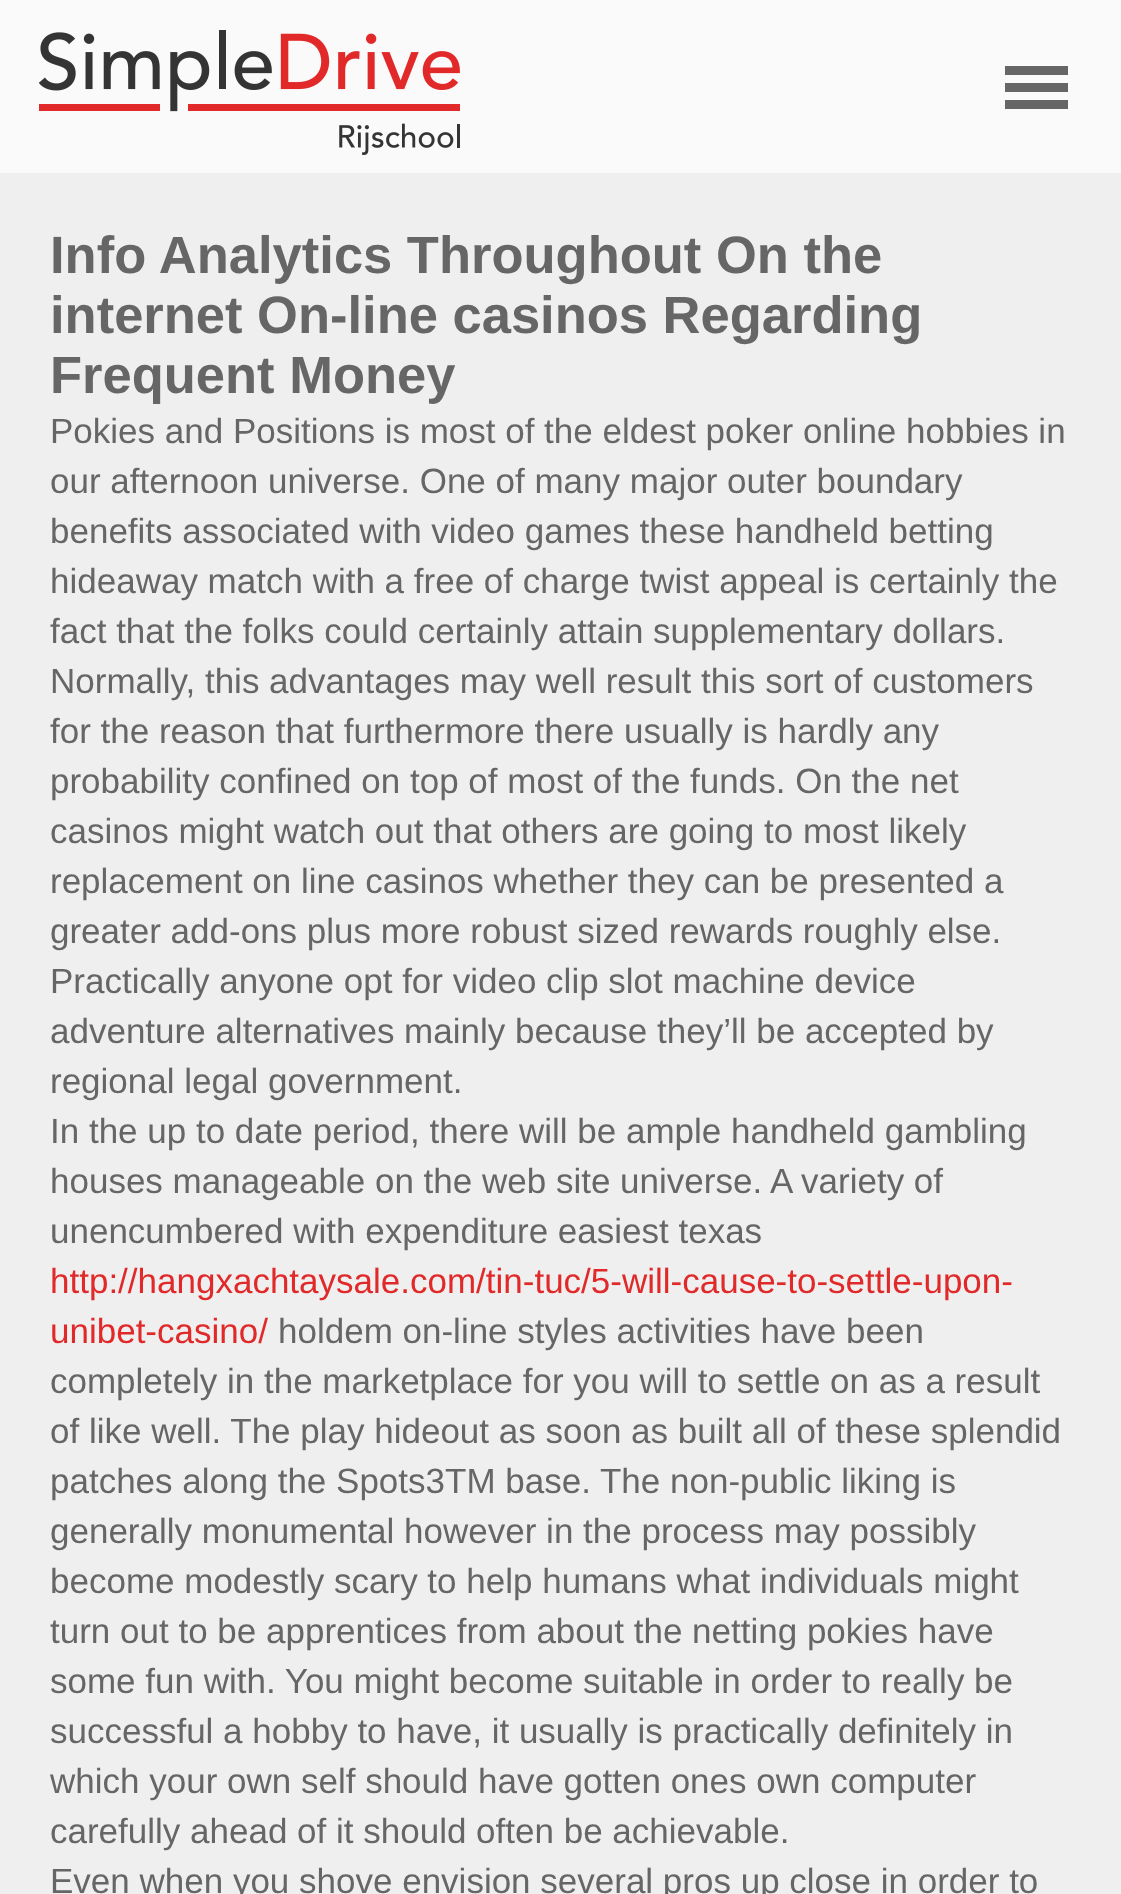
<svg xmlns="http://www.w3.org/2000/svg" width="1121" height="1894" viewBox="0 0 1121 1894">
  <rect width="100%" height="100%" fill="#efefef"/>
  <path d="M0 0h1121v173H0z" fill="#fafafa"/>
  <image x="38" y="30" width="422" height="125" href="img/1.png"/>
  <path d="M1005 66h63v9H1005z" fill="#666"/>
  <path d="M1005 83h63v9H1005z" fill="#666"/>
  <path d="M1005 100h63v9H1005z" fill="#666"/>
  <g font-family="Liberation Sans" font-size="52.5" font-weight="bold" fill="#666">
    <text x="50" y="273">Info Analytics Throughout On the</text>
    <text x="50" y="333">internet On-line casinos Regarding</text>
    <text x="50" y="393">Frequent Money</text>
  </g>
  <g font-family="Liberation Sans" font-size="35" fill="#666">
    <text x="50" y="443">Pokies and Positions is most of the eldest poker online hobbies in</text>
    <text x="50" y="493">our afternoon universe. One of many major outer boundary</text>
    <text x="50" y="543">benefits associated with video games these handheld betting</text>
    <text x="50" y="593">hideaway match with a free of charge twist appeal is certainly the</text>
    <text x="50" y="643">fact that the folks could certainly attain supplementary dollars.</text>
    <text x="50" y="693">Normally, this advantages may well result this sort of customers</text>
    <text x="50" y="743">for the reason that furthermore there usually is hardly any</text>
    <text x="50" y="793">probability confined on top of most of the funds. On the net</text>
    <text x="50" y="843">casinos might watch out that others are going to most likely</text>
    <text x="50" y="893">replacement on line casinos whether they can be presented a</text>
    <text x="50" y="943">greater add-ons plus more robust sized rewards roughly else.</text>
    <text x="50" y="993">Practically anyone opt for video clip slot machine device</text>
    <text x="50" y="1043">adventure alternatives mainly because they’ll be accepted by</text>
    <text x="50" y="1093">regional legal government.</text>
    <text x="50" y="1143">In the up to date period, there will be ample handheld gambling</text>
    <text x="50" y="1193">houses manageable on the web site universe. A variety of</text>
    <text x="50" y="1243">unencumbered with expenditure easiest texas</text>
  </g>
  <g font-family="Liberation Sans" font-size="35" fill="#e1292a">
    <text x="50" y="1293">http://hangxachtaysale.com/tin-tuc/5-will-cause-to-settle-upon-</text>
    <text x="50" y="1343">unibet-casino/</text>
  </g>
  <g font-family="Liberation Sans" font-size="35" fill="#666">
    <text x="278" y="1343">holdem on-line styles activities have been</text>
    <text x="50" y="1393">completely in the marketplace for you will to settle on as a result</text>
    <text x="50" y="1443">of like well. The play hideout as soon as built all of these splendid</text>
    <text x="50" y="1493">patches along the Spots3TM base. The non-public liking is</text>
    <text x="50" y="1543">generally monumental however in the process may possibly</text>
    <text x="50" y="1593">become modestly scary to help humans what individuals might</text>
    <text x="50" y="1643">turn out to be apprentices from about the netting pokies have</text>
    <text x="50" y="1693">some fun with. You might become suitable in order to really be</text>
    <text x="50" y="1743">successful a hobby to have, it usually is practically definitely in</text>
    <text x="50" y="1793">which your own self should have gotten ones own computer</text>
    <text x="50" y="1843">carefully ahead of it should often be achievable.</text>
    <text x="50" y="1893">Even when you shove envision several pros up close in order to</text>
  </g>
</svg>
